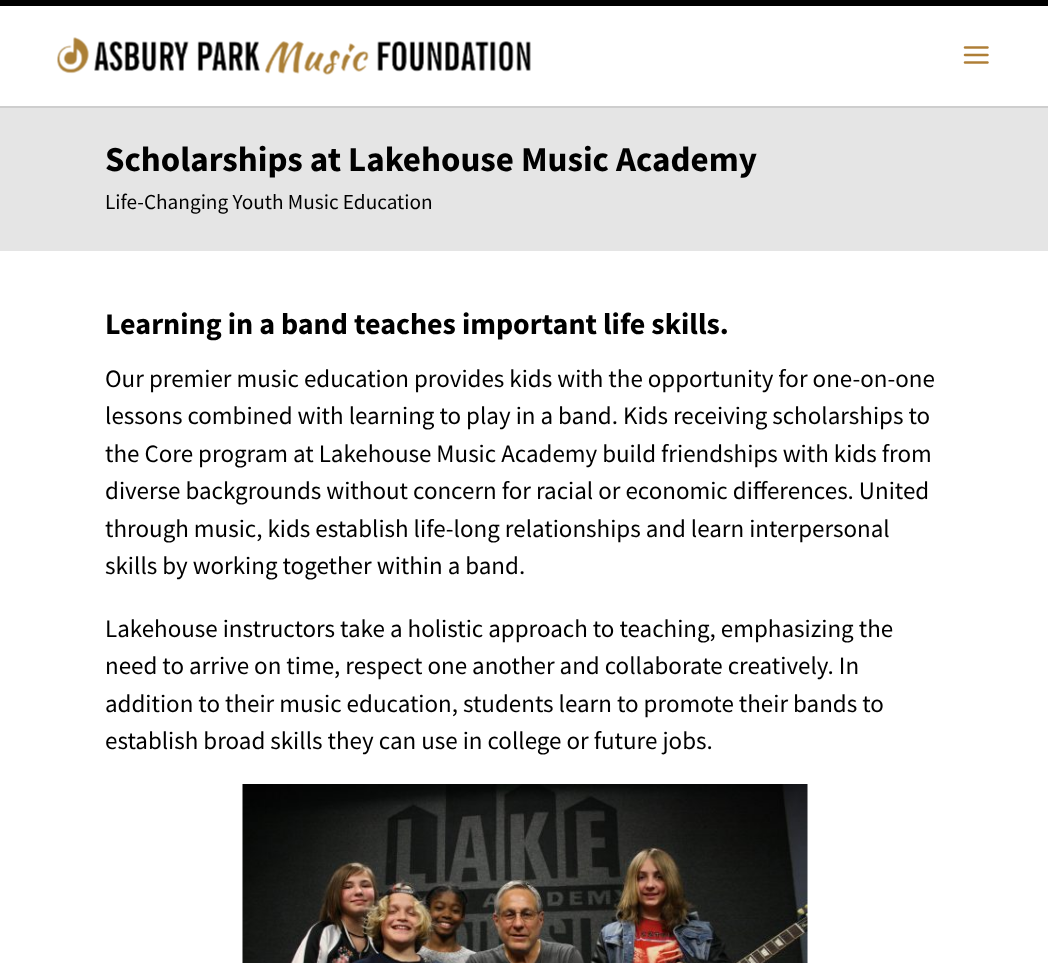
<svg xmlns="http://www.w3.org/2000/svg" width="1048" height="963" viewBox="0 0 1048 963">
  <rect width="100%" height="100%" fill="#fff"/>
  <path d="M0 0h1048v6H0z" fill="#000"/>
  <path d="M0 106V108H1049V8V106Z" fill="#cecece"/>
  <image x="57" y="37" width="474" height="38" href="img/1.png"/>
  <image x="963" y="46" width="26" height="18" href="img/2.png"/>
  <path d="M0 108h1048v143H0z" fill="#e5e5e5"/>
  <image x="242" y="784" width="566" height="179" href="img/3.png"/>
  <text x="105" y="171" font-family="Source Sans Pro" font-size="35" font-weight="bold" fill="#000">Scholarships at Lakehouse Music Academy</text>
  <text x="105" y="209" font-family="Source Sans Pro" font-size="21.25" fill="#000">Life-Changing Youth Music Education</text>
  <text x="105" y="334" font-family="Source Sans Pro" font-size="30" font-weight="bold" fill="#000">Learning in a band teaches important life skills.</text>
  <g font-family="Source Sans Pro" font-size="25" fill="#000">
    <text x="105" y="387">Our premier music education provides kids with the opportunity for one-on-one</text>
    <text x="105" y="424">lessons combined with learning to play in a band. Kids receiving scholarships to</text>
    <text x="105" y="462">the Core program at Lakehouse Music Academy build friendships with kids from</text>
    <text x="105" y="499">diverse backgrounds without concern for racial or economic differences. United</text>
    <text x="105" y="537">through music, kids establish life-long relationships and learn interpersonal</text>
    <text x="105" y="574">skills by working together within a band.</text>
    <text x="105" y="637">Lakehouse instructors take a holistic approach to teaching, emphasizing the</text>
    <text x="105" y="674">need to arrive on time, respect one another and collaborate creatively. In</text>
    <text x="105" y="712">addition to their music education, students learn to promote their bands to</text>
    <text x="105" y="749">establish broad skills they can use in college or future jobs.</text>
  </g>
</svg>
